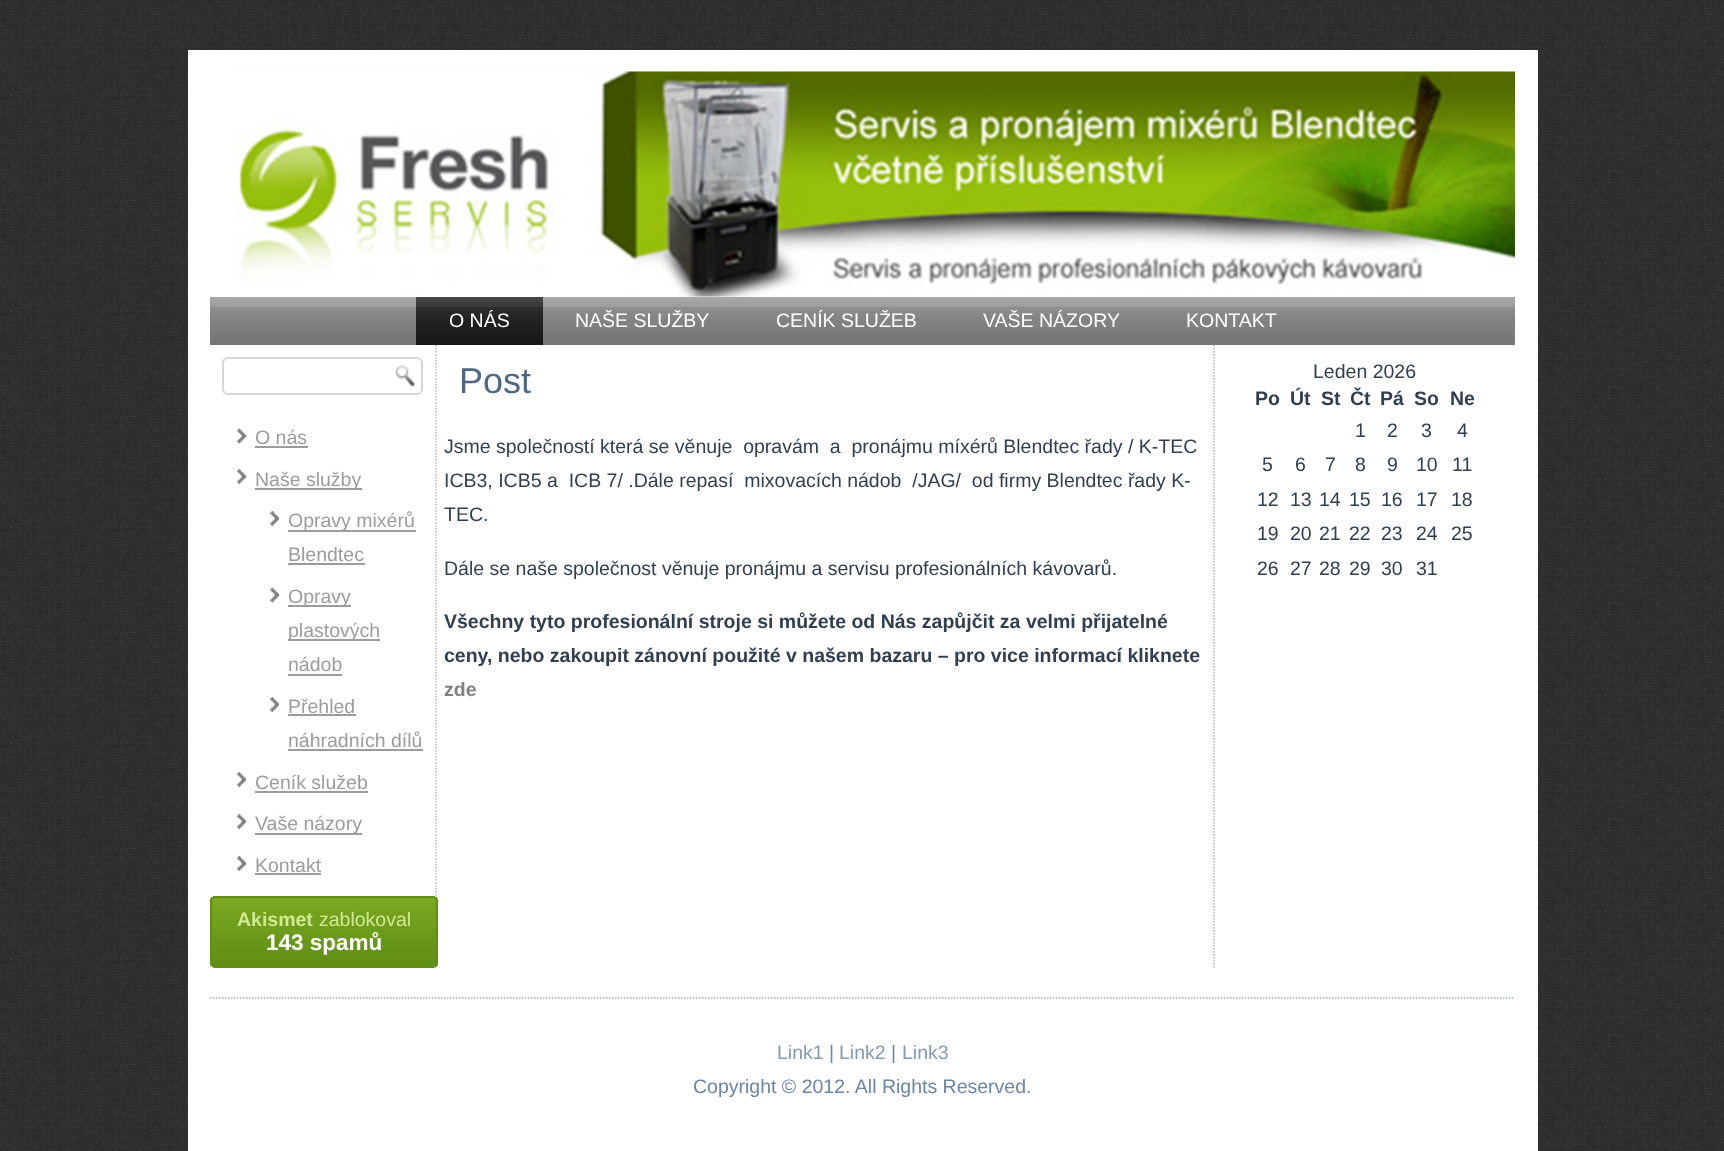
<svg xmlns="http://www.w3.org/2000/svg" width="1724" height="1151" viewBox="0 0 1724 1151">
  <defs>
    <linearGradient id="g1" gradientUnits="userSpaceOnUse" x1="863" y1="297" x2="863" y2="345"><stop offset="0" stop-color="#a8a8a8"/><stop offset="0.1" stop-color="#a3a3a3"/><stop offset="0.2" stop-color="#9c9c9c"/><stop offset="0.2" stop-color="#8f8f8f"/><stop offset="0.5" stop-color="#828282"/><stop offset="0.6" stop-color="#808080"/><stop offset="1" stop-color="#757575"/></linearGradient>
    <linearGradient id="g2" gradientUnits="userSpaceOnUse" x1="479" y1="297" x2="479" y2="345"><stop offset="0" stop-color="#454545"/><stop offset="0.1" stop-color="#404040"/><stop offset="0.2" stop-color="#383838"/><stop offset="0.2" stop-color="#2e2e2e"/><stop offset="0.5" stop-color="#212121"/><stop offset="1" stop-color="#171717"/></linearGradient>
    <clipPath id="clip1"><rect x="210" y="896" width="228" height="72" rx="5"/></clipPath>
    <linearGradient id="g3" gradientUnits="userSpaceOnUse" x1="212" y1="897" x2="212" y2="966"><stop offset="0" stop-color="#7ca821"/><stop offset="1" stop-color="#5f8e14"/></linearGradient>
  </defs>
  <rect width="100%" height="100%" fill="#fff"/>
  <image x="0" y="0" width="1724" height="1151" href="img/1.png"/>
  <path d="M188 50h1350v1101H188z" fill="#fff"/>
  <image x="234" y="71" width="1281" height="226" href="img/2.png"/>
  <path d="M210 297h1305v48H210z" fill="url(#g1)"/>
  <path d="M416 297h127v48H416z" fill="url(#g2)"/>
  <path d="M436 345V967.5" fill="none" stroke="#b5b5b5" stroke-width="1.5" stroke-dasharray="1.5 1.5"/>
  <rect x="223" y="358" width="199" height="36" rx="5" fill="none" stroke="#d6d6d6" stroke-width="2"/>
  <image x="394" y="365" width="22" height="22" href="img/3.png"/>
  <image x="237" y="428" width="9" height="16" href="img/4.png"/>
  <path d="M255 446h53v2H255z" fill="#9c9c9c"/>
  <image x="237" y="469" width="9" height="15" href="img/5.png"/>
  <path d="M255 488h107v2H255z" fill="#9c9c9c"/>
  <image x="270" y="511" width="9" height="15" href="img/6.png"/>
  <path d="M288 530h128v2H288z" fill="#9c9c9c"/>
  <path d="M288 563h77v2H288z" fill="#9c9c9c"/>
  <image x="270" y="587" width="9" height="16" href="img/7.png"/>
  <path d="M288 605h63v2H288z" fill="#9c9c9c"/>
  <path d="M288 639h92v2H288z" fill="#9c9c9c"/>
  <path d="M288 674h54v2H288z" fill="#9c9c9c"/>
  <image x="270" y="697" width="9" height="15" href="img/6.png"/>
  <path d="M288 714h68v2H288z" fill="#9c9c9c"/>
  <path d="M288 749h135v2H288z" fill="#9c9c9c"/>
  <image x="237" y="772" width="9" height="15" href="img/5.png"/>
  <path d="M255 791h113v2H255z" fill="#9c9c9c"/>
  <image x="237" y="814" width="9" height="15" href="img/5.png"/>
  <path d="M255 833h107v2H255z" fill="#9c9c9c"/>
  <image x="237" y="856" width="9" height="15" href="img/5.png"/>
  <path d="M255 873h66v2H255z" fill="#9c9c9c"/>
  <g clip-path="url(#clip1)">
    <path d="M210 897h228v69H210z" fill="url(#g3)"/>
  </g>
  <rect x="211" y="897" width="226" height="70" rx="4" fill="none" stroke="#5f8e14" stroke-width="2"/>
  <path d="M1214 345V967.5" fill="none" stroke="#b5b5b5" stroke-width="1.5" stroke-dasharray="1.5 1.5"/>
  <path d="M210 998H1515" fill="none" stroke="#9cafc4" stroke-width="1.5" stroke-dasharray="1.5 1.5"/>
  <g font-family="Liberation Sans" font-size="19.5" fill="#fff">
    <text x="449" y="327">O NÁS</text>
    <text x="575" y="327">NAŠE SLUŽBY</text>
    <text x="776" y="327">CENÍK SLUŽEB</text>
    <text x="983" y="327">VAŠE NÁZORY</text>
    <text x="1186" y="327">KONTAKT</text>
  </g>
  <g font-family="Liberation Sans" font-size="19.5" fill="#9c9c9c">
    <text x="255" y="444">O nás</text>
    <text x="255" y="486">Naše služby</text>
    <text x="288" y="527">Opravy mixérů</text>
    <text x="288" y="561">Blendtec</text>
    <text x="288" y="603">Opravy</text>
    <text x="288" y="637">plastových</text>
    <text x="288" y="671">nádob</text>
    <text x="288" y="713">Přehled</text>
    <text x="288" y="747">náhradních dílů</text>
    <text x="255" y="789">Ceník služeb</text>
    <text x="255" y="830">Vaše názory</text>
    <text x="255" y="872">Kontakt</text>
  </g>
  <text x="237" y="926" font-family="Liberation Sans" font-size="19.5" font-weight="bold" fill="#cfea93">Akismet</text>
  <text x="319" y="926" font-family="Liberation Sans" font-size="19.5" fill="#cfea93">zablokoval</text>
  <text x="266" y="950" font-family="Liberation Sans" font-size="22.5" font-weight="bold" fill="#fff">143 spamů</text>
  <text x="459" y="393" font-family="Liberation Sans" font-size="36" fill="#4e6883">Post</text>
  <g font-family="Liberation Sans" font-size="19.5" fill="#303f50">
    <text x="444" y="453" xml:space="preserve">Jsme společností která se věnuje  opravám  a  pronájmu míxérů Blendtec řady / K-TEC</text>
    <text x="444" y="487" xml:space="preserve">ICB3, ICB5 a  ICB 7/ .Dále repasí  mixovacích nádob  /JAG/  od firmy Blendtec řady K-</text>
    <text x="444" y="521">TEC.</text>
    <text x="444" y="575">Dále se naše společnost věnuje pronájmu a servisu profesionálních kávovarů.</text>
  </g>
  <g font-family="Liberation Sans" font-size="19.5" font-weight="bold" fill="#303f50">
    <text x="444" y="628">Všechny tyto profesionální stroje si můžete od Nás zapůjčit za velmi přijatelné</text>
    <text x="444" y="662">ceny, nebo zakoupit zánovní použité v našem bazaru – pro vice informací kliknete</text>
  </g>
  <text x="444" y="696" font-family="Liberation Sans" font-size="19.5" font-weight="bold" fill="#808080">zde</text>
  <text x="1313" y="378" font-family="Liberation Sans" font-size="19.5" fill="#303f50">Leden 2026</text>
  <g font-family="Liberation Sans" font-size="19.5" font-weight="bold" fill="#303f50">
    <text x="1255" y="405">Po</text>
    <text x="1290" y="405">Út</text>
    <text x="1321" y="405">St</text>
    <text x="1350" y="405">Čt</text>
    <text x="1380" y="405">Pá</text>
    <text x="1414" y="405">So</text>
    <text x="1450" y="405">Ne</text>
  </g>
  <g font-family="Liberation Sans" font-size="19.5" fill="#303f50">
    <text x="1355" y="437">1</text>
    <text x="1387" y="437">2</text>
    <text x="1421" y="437">3</text>
    <text x="1457" y="437">4</text>
    <text x="1262" y="471">5</text>
    <text x="1295" y="471">6</text>
    <text x="1325" y="471">7</text>
    <text x="1355" y="471">8</text>
    <text x="1387" y="471">9</text>
    <text x="1416" y="471">10</text>
    <text x="1452" y="471">11</text>
    <text x="1257" y="506">12</text>
    <text x="1290" y="506">13</text>
    <text x="1319" y="506">14</text>
    <text x="1349" y="506">15</text>
    <text x="1381" y="506">16</text>
    <text x="1416" y="506">17</text>
    <text x="1451" y="506">18</text>
    <text x="1257" y="540">19</text>
    <text x="1290" y="540">20</text>
    <text x="1319" y="540">21</text>
    <text x="1349" y="540">22</text>
    <text x="1381" y="540">23</text>
    <text x="1416" y="540">24</text>
    <text x="1451" y="540">25</text>
    <text x="1257" y="575">26</text>
    <text x="1290" y="575">27</text>
    <text x="1319" y="575">28</text>
    <text x="1349" y="575">29</text>
    <text x="1381" y="575">30</text>
    <text x="1416" y="575">31</text>
  </g>
  <text x="777" y="1059" font-family="Liberation Sans" font-size="19.5" fill="#839bb4">Link1</text>
  <text x="829" y="1059" font-family="Liberation Sans" font-size="19.5" fill="#6986a5">|</text>
  <text x="839" y="1059" font-family="Liberation Sans" font-size="19.5" fill="#839bb4">Link2</text>
  <text x="891" y="1059" font-family="Liberation Sans" font-size="19.5" fill="#6986a5">|</text>
  <text x="902" y="1059" font-family="Liberation Sans" font-size="19.5" fill="#839bb4">Link3</text>
  <text x="693" y="1093" font-family="Liberation Sans" font-size="19.5" fill="#6986a5">Copyright © 2012. All Rights Reserved.</text>
</svg>
